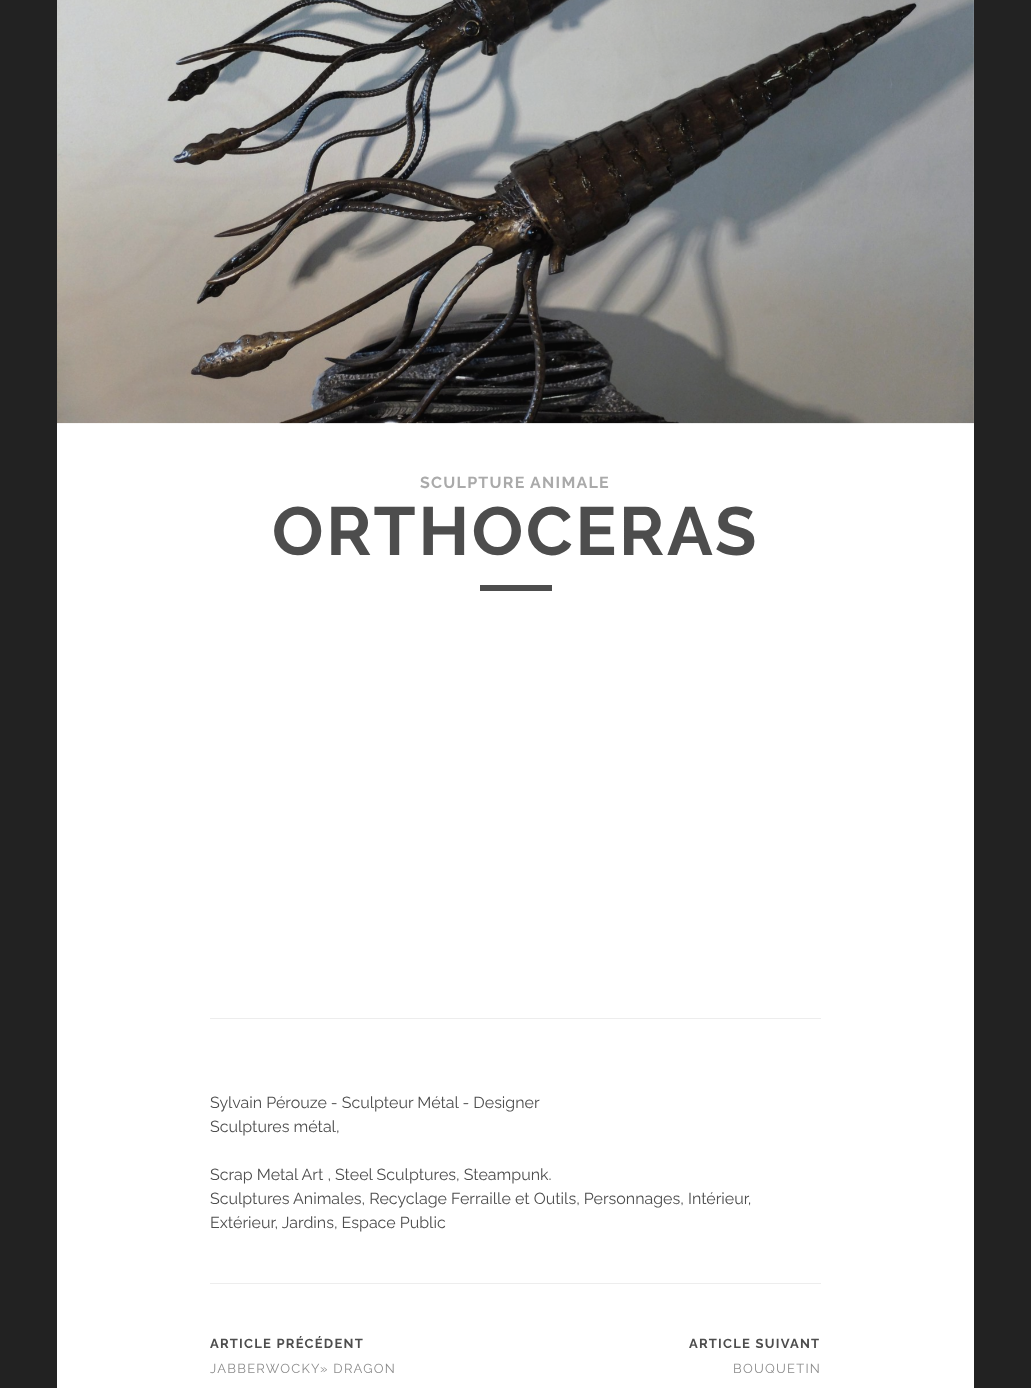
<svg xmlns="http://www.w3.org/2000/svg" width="1031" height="1388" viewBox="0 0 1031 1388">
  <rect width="100%" height="100%" fill="#222"/>
  <path d="M57 0h917v1388H57z" fill="#fff"/>
  <image x="57" y="0" width="917" height="424" href="img/1.png"/>
  <path d="M480 585h72v6H480z" fill="#4d4d4d"/>
  <path d="M210 1018h611v1H210z" fill="#ededed"/>
  <path d="M210 1283h611v1H210z" fill="#ededed"/>
  <text x="420" y="488" font-family="Raleway" font-size="16" font-weight="bold" letter-spacing="1.25" fill="#aaa">SCULPTURE ANIMALE</text>
  <text x="272" y="555" font-family="Raleway" font-size="68" font-weight="bold" letter-spacing="2.75" fill="#4d4d4d">ORTHOCERAS</text>
  <g font-family="Raleway" font-size="16" fill="#4d4d4d">
    <text x="210" y="1108">Sylvain Pérouze - Sculpteur Métal - Designer</text>
    <text x="210" y="1132">Sculptures métal,</text>
    <text x="210" y="1180">Scrap Metal Art , Steel Sculptures, Steampunk.</text>
    <text x="210" y="1204">Sculptures Animales, Recyclage Ferraille et Outils, Personnages, Intérieur,</text>
    <text x="210" y="1228">Extérieur, Jardins, Espace Public</text>
  </g>
  <text x="210" y="1348" font-family="Raleway" font-size="13" font-weight="bold" letter-spacing="1.25" fill="#4d4d4d">ARTICLE PRÉCÉDENT</text>
  <text x="210" y="1373" font-family="Raleway" font-size="13" letter-spacing="1.25" fill="#8c8c8c">JABBERWOCKY» DRAGON</text>
  <text x="689" y="1348" font-family="Raleway" font-size="13" font-weight="bold" letter-spacing="1.25" fill="#4d4d4d">ARTICLE SUIVANT</text>
  <text x="733" y="1373" font-family="Raleway" font-size="13" letter-spacing="1.25" fill="#8c8c8c">BOUQUETIN</text>
</svg>
